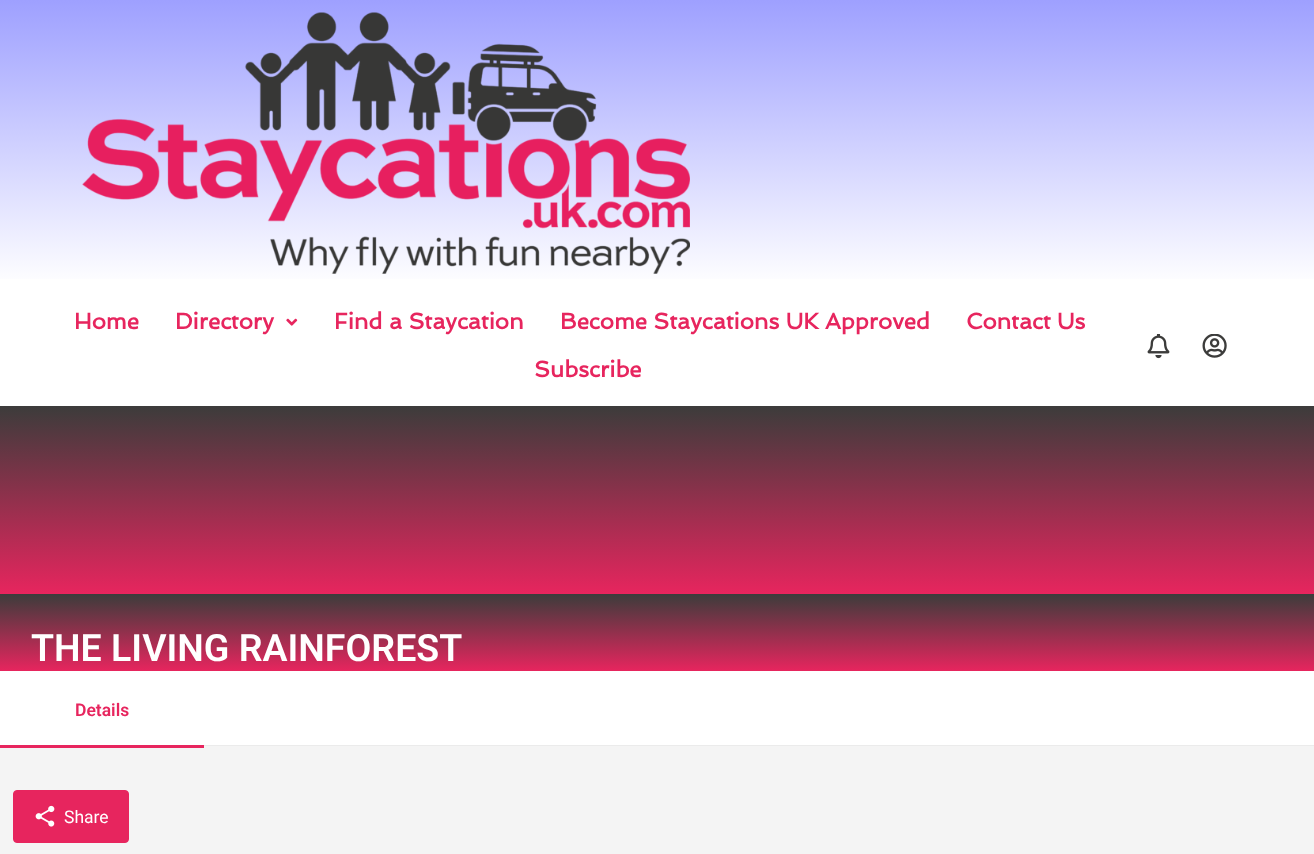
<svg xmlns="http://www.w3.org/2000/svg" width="1314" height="854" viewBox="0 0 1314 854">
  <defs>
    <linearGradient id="g1" gradientUnits="userSpaceOnUse" x1="658" y1="0" x2="658" y2="286"><stop offset="0" stop-color="#9ea0ff"/><stop offset="1" stop-color="#fff"/></linearGradient>
    <linearGradient id="g2" gradientUnits="userSpaceOnUse" x1="658" y1="406" x2="658" y2="594"><stop offset="0" stop-color="#3c3c3b"/><stop offset="1" stop-color="#e7255e"/></linearGradient>
    <linearGradient id="g3" gradientUnits="userSpaceOnUse" x1="658" y1="594" x2="658" y2="671"><stop offset="0" stop-color="#3c3c3b"/><stop offset="1" stop-color="#e7255e"/></linearGradient>
  </defs>
  <rect width="100%" height="100%" fill="#fff"/>
  <path d="M0 0h1314v279H0z" fill="url(#g1)"/>
  <image x="82" y="12" width="608" height="262" href="img/1.png"/>
  <image x="286" y="318" width="12" height="8" href="img/2.png"/>
  <image x="1147" y="334" width="23" height="25" href="img/3.png"/>
  <image x="1202" y="334" width="25" height="24" href="img/4.png"/>
  <path d="M0 406h1314v188H0z" fill="url(#g2)"/>
  <path d="M0 594h1314v77H0z" fill="url(#g3)"/>
  <path d="M204 745h1110v1H204z" fill="#ebebeb"/>
  <path d="M0 746h1314v108H0z" fill="#f4f4f4"/>
  <path d="M0 745h204v3H0z" fill="#e7255e"/>
  <rect x="13.5" y="790.5" width="115" height="52" rx="3.5" fill="#e7255e" stroke="#e7255e"/>
  <image x="35" y="805" width="20" height="22" href="img/5.png"/>
  <g font-family="Spinnaker" font-size="22.5" font-weight="bold" fill="#e7255e">
    <text x="74" y="329">Home</text>
    <text x="175" y="329">Directory</text>
    <text x="334" y="329">Find a Staycation</text>
    <text x="560" y="329">Become Staycations UK Approved</text>
    <text x="966" y="329">Contact Us</text>
    <text x="534" y="377">Subscribe</text>
  </g>
  <text x="31" y="661" font-family="Roboto" font-size="37.5" font-weight="600" fill="#fff">THE LIVING RAINFOREST</text>
  <text x="75" y="716" font-family="Roboto" font-size="17.5" font-weight="600" fill="#e7255e">Details</text>
  <text x="64" y="823" font-family="Roboto" font-size="17.5" fill="#fff">Share</text>
</svg>
